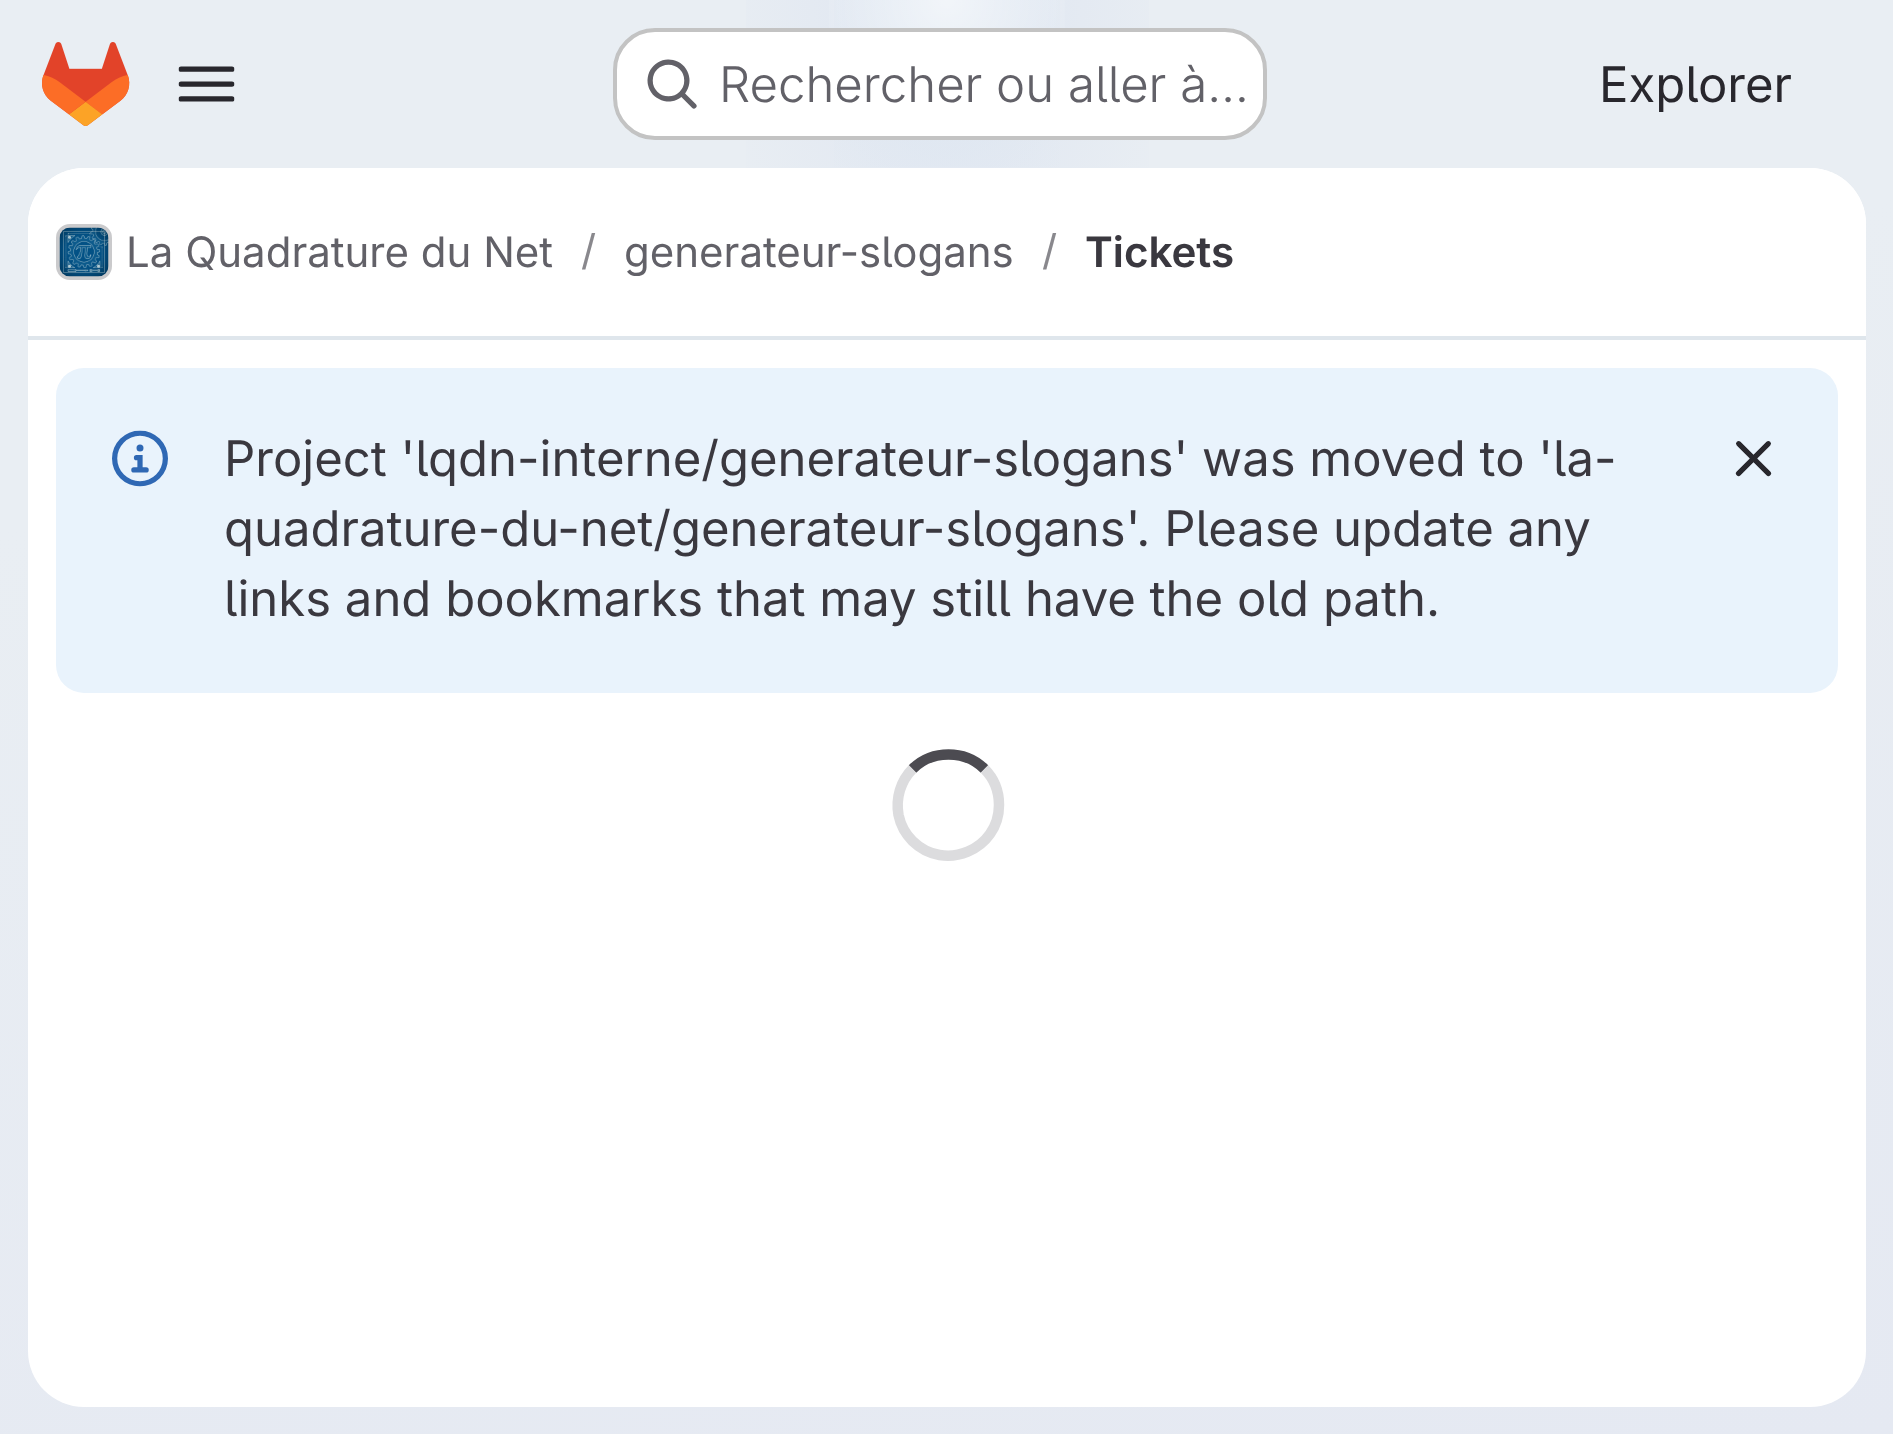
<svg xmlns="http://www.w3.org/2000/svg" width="1893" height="1434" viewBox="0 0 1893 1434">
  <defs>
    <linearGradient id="g1" gradientUnits="userSpaceOnUse" x1="1098" y1="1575" x2="796" y2="-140"><stop offset="0" stop-color="#e5e9f2"/><stop offset="0.7" stop-color="#e9eef3"/></linearGradient>
    <radialGradient id="g2" gradientUnits="userSpaceOnUse" cx="0" cy="0" r="1" gradientTransform="matrix(947 0 0 1435 947 0)"><stop offset="0" stop-color="#dee5f1"/><stop offset="0.26" stop-color="#dee5f1" stop-opacity="0"/></radialGradient>
    <radialGradient id="g3" gradientUnits="userSpaceOnUse" cx="0" cy="0" r="1" gradientTransform="matrix(947 0 0 1435 947 0)"><stop offset="0" stop-color="#dee7f1"/><stop offset="0.18" stop-color="#dee7f1" stop-opacity="0"/></radialGradient>
    <radialGradient id="g4" gradientUnits="userSpaceOnUse" cx="947" cy="0" r="1719"><stop offset="0" stop-color="#fff" stop-opacity="0.6"/><stop offset="0.08" stop-color="#fff" stop-opacity="0"/></radialGradient>
  </defs>
  <rect width="100%" height="100%" fill="#fff"/>
  <path d="M0 0h1893v1434H0z" fill="url(#g1)"/>
  <path d="M746 0h403v168H746z" fill="url(#g2)"/>
  <path d="M834 0h226v167H834z" fill="url(#g3)"/>
  <path d="M829 0h236v28H829z" fill="url(#g4)"/>
  <image x="42" y="42" width="88" height="84" href="img/1.png"/>
  <image x="178" y="66" width="57" height="36" href="img/2.png"/>
  <rect x="613" y="28" width="654" height="112" rx="42" fill="#fff"/>
  <rect x="615" y="30" width="650" height="108" rx="40" fill="none" stroke="#0505063d" stroke-width="4"/>
  <image x="647" y="59" width="50" height="50" href="img/3.png"/>
  <rect x="28" y="168" width="1838" height="1239" rx="56" fill="#fff"/>
  <path d="M84 168H1810C1841 168 1866 193 1866 224V340H28V224C28 193 53 168 84 168Z" fill="#fff"/>
  <path d="M28 336h1838v4H28z" fill="#dfe6ec"/>
  <rect x="58" y="226" width="52" height="52" rx="12" fill="none" stroke="#dcdcde" stroke-width="4"/>
  <image x="59" y="227" width="50" height="50" href="img/4.png"/>
  <rect x="58" y="226" width="52" height="52" rx="12" fill="none" stroke="#05050614" stroke-width="4"/>
  <rect x="56" y="368" width="1782" height="325" rx="28" fill="#e9f3fc"/>
  <image x="112" y="430" width="56" height="57" href="img/5.png"/>
  <image x="1735" y="441" width="37" height="36" href="img/6.png"/>
  <path d="M912.5 769C932 749.5 965 749.5 984.5 769" fill="none" stroke="#4c4b51" stroke-width="10.5"/>
  <path d="M984.5 769C994 778.5 999 791.5 999 805C999 850 944.5 872.5 912.5 841C905.5 834 900.5 824.5 898.5 815C895.5 798.5 900.5 781 912.5 769" fill="none" stroke="#dcdcde" stroke-width="10.5"/>
  <text x="719" y="102" font-family="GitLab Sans" font-size="49" font-weight="300" fill="#626168">Rechercher ou aller à…</text>
  <text x="1599" y="102" font-family="GitLab Sans" font-size="49" fill="#28272d">Explorer</text>
  <text x="126" y="267" font-family="GitLab Sans" font-size="42" fill="#626168">La Quadrature du Net</text>
  <text x="581" y="265" font-family="GitLab Sans" font-size="42" fill="#89888d">/</text>
  <text x="624" y="267" font-family="GitLab Sans" font-size="42" fill="#626168">generateur-slogans</text>
  <text x="1042" y="265" font-family="GitLab Sans" font-size="42" fill="#89888d">/</text>
  <text x="1085" y="267" font-family="GitLab Sans" font-size="42" font-weight="600" fill="#3a383f">Tickets</text>
  <g font-family="GitLab Sans" font-size="49" fill="#3a383f">
    <text x="224" y="476">Project 'lqdn-interne/generateur-slogans' was moved to 'la-</text>
    <text x="224" y="546">quadrature-du-net/generateur-slogans'. Please update any</text>
    <text x="224" y="616">links and bookmarks that may still have the old path.</text>
  </g>
</svg>
